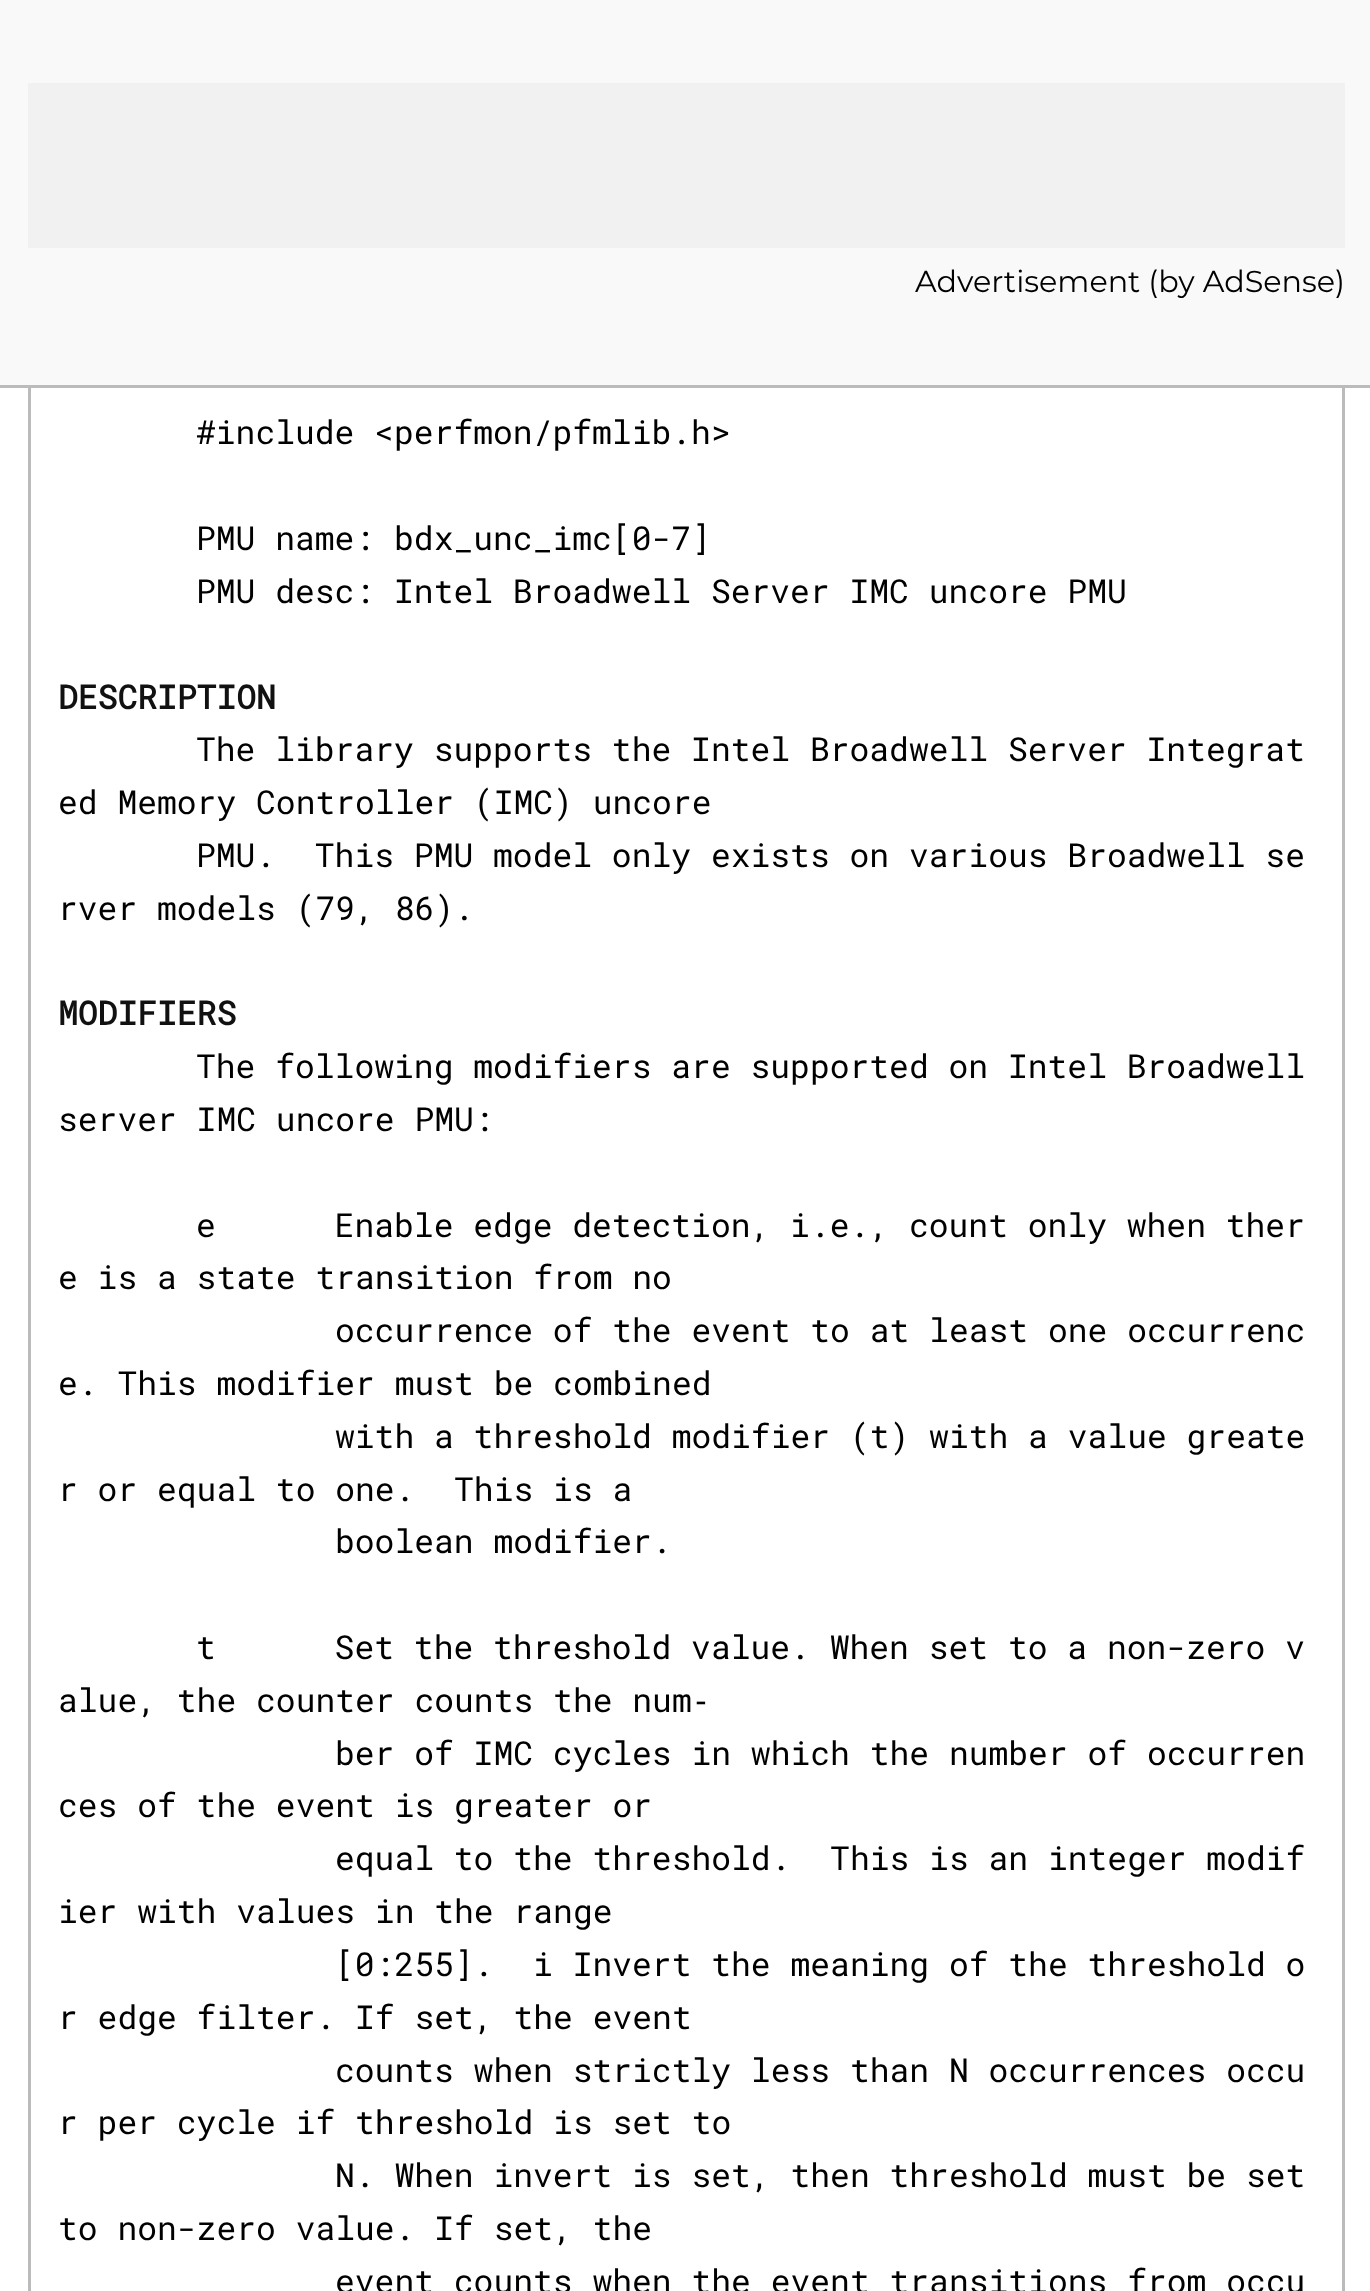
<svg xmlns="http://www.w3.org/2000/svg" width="1370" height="2291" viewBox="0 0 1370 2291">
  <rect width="100%" height="100%" fill="#fff"/>
  <path d="M0 0h1370v385H0z" fill="#f9f9f9"/>
  <path d="M0 385h1370v3H0z" fill="#bbb"/>
  <path d="M29.5 -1.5h1314v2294H29.5z" fill="none" stroke="#bbb" stroke-width="3"/>
  <path d="M28 0h1317v385H28z" fill="#f9f9f9"/>
  <path d="M28 83h1317v165H28z" fill="#f1f1f1"/>
  <text x="915" y="292" font-family="Montserrat" font-size="30.25" font-weight="100" fill="#000">Advertisement (by AdSense)</text>
  <g font-family="Roboto Mono" font-size="33" fill="#000">
    <text x="196" y="444">#include &lt;perfmon/pfmlib.h&gt;</text>
    <text x="196" y="550">PMU name: bdx_unc_imc[0-7]</text>
    <text x="196" y="603">PMU desc: Intel Broadwell Server IMC uncore PMU</text>
  </g>
  <text x="58" y="709" font-family="Roboto Mono" font-size="33" font-weight="bold" fill="#111">DESCRIPTION</text>
  <g font-family="Roboto Mono" font-size="33" fill="#000">
    <text x="196" y="761">The library supports the Intel Broadwell Server Integrat</text>
    <text x="58" y="814">ed Memory Controller (IMC) uncore</text>
    <text x="196" y="867" xml:space="preserve">PMU.  This PMU model only exists on various Broadwell se</text>
    <text x="58" y="920">rver models (79, 86).</text>
  </g>
  <text x="58" y="1025" font-family="Roboto Mono" font-size="33" font-weight="bold" fill="#111">MODIFIERS</text>
  <g font-family="Roboto Mono" font-size="33" fill="#000">
    <text x="196" y="1078">The following modifiers are supported on Intel Broadwell</text>
    <text x="58" y="1131">server IMC uncore PMU:</text>
    <text x="196" y="1237" xml:space="preserve">e      Enable edge detection, i.e., count only when ther</text>
    <text x="58" y="1289">e is a state transition from no</text>
    <text x="335" y="1342">occurrence of the event to at least one occurrenc</text>
    <text x="58" y="1395">e. This modifier must be combined</text>
    <text x="335" y="1448">with a threshold modifier (t) with a value greate</text>
    <text x="58" y="1501" xml:space="preserve">r or equal to one.  This is a</text>
    <text x="335" y="1553">boolean modifier.</text>
    <text x="196" y="1659" xml:space="preserve">t      Set the threshold value. When set to a non-zero v</text>
    <text x="58" y="1712">alue, the counter counts the num</text>
  </g>
  <text x="691" y="1712" font-family="DejaVu Sans Mono" font-size="33" fill="#000">‐</text>
  <g font-family="Roboto Mono" font-size="33" fill="#000">
    <text x="335" y="1765">ber of IMC cycles in which the number of occurren</text>
    <text x="58" y="1817">ces of the event is greater or</text>
    <text x="335" y="1870" xml:space="preserve">equal to the threshold.  This is an integer modif</text>
    <text x="58" y="1923">ier with values in the range</text>
    <text x="335" y="1976" xml:space="preserve">[0:255].  i Invert the meaning of the threshold o</text>
    <text x="58" y="2029">r edge filter. If set, the event</text>
    <text x="335" y="2082">counts when strictly less than N occurrences occu</text>
    <text x="58" y="2134">r per cycle if threshold is set to</text>
    <text x="335" y="2187">N. When invert is set, then threshold must be set</text>
    <text x="58" y="2240">to non-zero value. If set, the</text>
    <text x="335" y="2293">event counts when the event transitions from occu</text>
  </g>
</svg>
